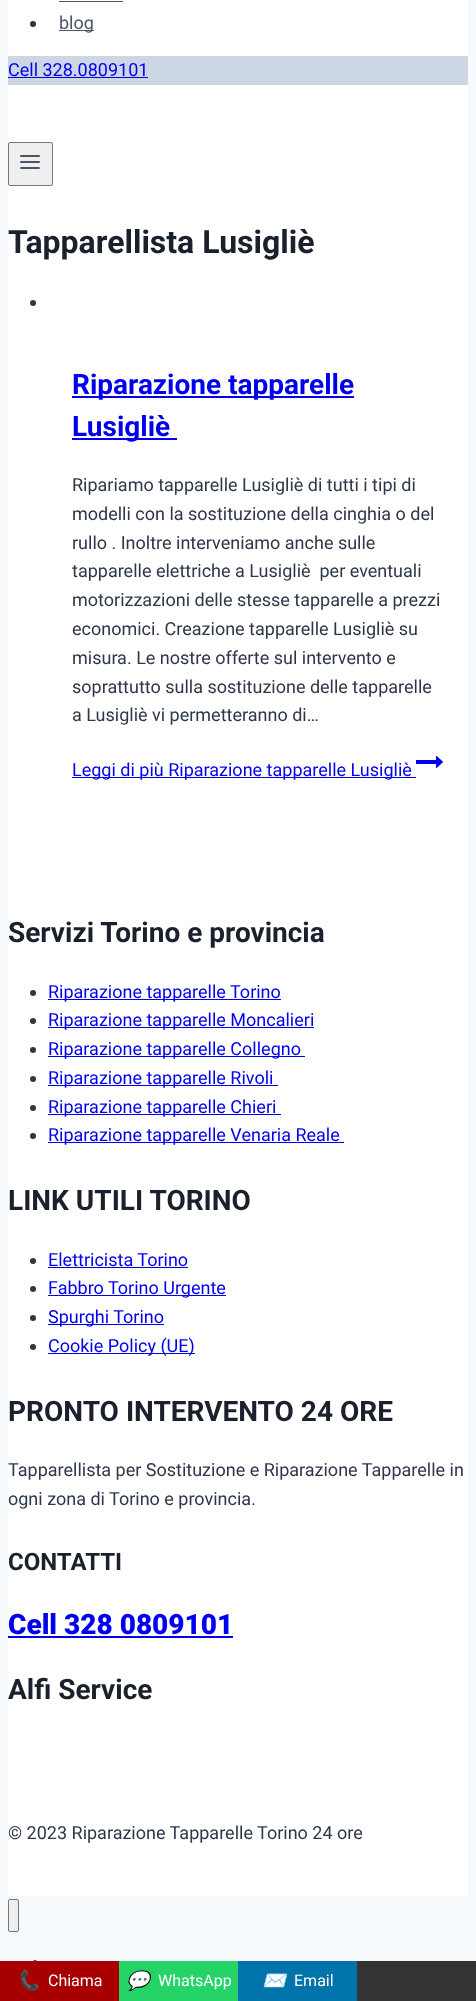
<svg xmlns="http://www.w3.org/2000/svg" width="476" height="2001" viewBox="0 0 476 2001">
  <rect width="100%" height="100%" fill="#f7fafc"/>
  <path d="M8 0h460v1896H8z" fill="#fff"/>
  <path d="M59 1h64v1H59z" fill="#4a5568"/>
  <circle cx="33" cy="24" r="3" fill="#2d3748"/>
  <path d="M59 30h35v1H59z" fill="#4a5568"/>
  <path d="M8 56h460v29H8z" fill="#cdd6e3"/>
  <path d="M8 77h140v1H8z" fill="#00e"/>
  <rect x="8.5" y="142.5" width="44" height="43" rx="1.5" fill="#efefef" stroke="#767676"/>
  <image x="20" y="155" width="20" height="14" href="img/1.png"/>
  <circle cx="33" cy="303" r="3" fill="#2d3748"/>
  <path d="M72 396h282v2H72z" fill="#00e"/>
  <path d="M72 438h105v2H72z" fill="#00e"/>
  <path d="M72 777h344v1H72z" fill="#00e"/>
  <image x="416" y="756" width="27" height="12" href="img/2.png"/>
  <circle cx="33" cy="993" r="3" fill="#2d3748"/>
  <path d="M48 999h233v1H48z" fill="#00e"/>
  <circle cx="33" cy="1021" r="3" fill="#2d3748"/>
  <path d="M48 1027h266v1H48z" fill="#00e"/>
  <circle cx="33" cy="1050" r="3" fill="#2d3748"/>
  <path d="M48 1056h257v1H48z" fill="#00e"/>
  <circle cx="33" cy="1079" r="3" fill="#2d3748"/>
  <path d="M48 1085h230v1H48z" fill="#00e"/>
  <circle cx="33" cy="1108" r="3" fill="#2d3748"/>
  <path d="M48 1114h233v1H48z" fill="#00e"/>
  <circle cx="33" cy="1136" r="3" fill="#2d3748"/>
  <path d="M48 1142h296v1H48z" fill="#00e"/>
  <circle cx="33" cy="1261" r="3" fill="#2d3748"/>
  <path d="M48 1267h140v1H48z" fill="#00e"/>
  <circle cx="33" cy="1289" r="3" fill="#2d3748"/>
  <path d="M48 1295h178v1H48z" fill="#00e"/>
  <circle cx="33" cy="1318" r="3" fill="#2d3748"/>
  <path d="M48 1324h116v1H48z" fill="#00e"/>
  <circle cx="33" cy="1347" r="3" fill="#2d3748"/>
  <path d="M48 1353h147v1H48z" fill="#00e"/>
  <path d="M8 1636h225v2H8z" fill="#00e"/>
  <rect x="8.5" y="1899.5" width="10" height="32" rx="1.5" fill="#efefef" stroke="#767676"/>
  <circle cx="35" cy="1962" r="2" fill="#2d3748"/>
  <path d="M357 1961h119v40H357z" fill="#333"/>
  <path d="M0 1961h119v40H0z" fill="#a80000"/>
  <path d="M119 1961h119v40H119z" fill="#25d366"/>
  <path d="M238 1961h119v40H238z" fill="#0073aa"/>
  <text x="59" y="29" font-family="Roboto" font-size="18" fill="#4a5568">blog</text>
  <text x="8" y="76" font-family="Roboto" font-size="18" fill="#00e">Cell 328.0809101</text>
  <text x="8" y="253" font-family="Roboto" font-size="32" font-weight="bold" fill="#1a202c">Tapparellista Lusigliè</text>
  <g font-family="Roboto" font-size="28" font-weight="bold" fill="#00e">
    <text x="72" y="394">Riparazione tapparelle</text>
    <text x="72" y="436">Lusigliè</text>
  </g>
  <g font-family="Roboto" font-size="18" fill="#2d3748">
    <text x="72" y="491">Ripariamo tapparelle Lusigliè di tutti i tipi di</text>
    <text x="72" y="520">modelli con la sostituzione della cinghia o del</text>
    <text x="72" y="549">rullo . Inoltre interveniamo anche sulle</text>
    <text x="72" y="577" xml:space="preserve">tapparelle elettriche a Lusigliè  per eventuali</text>
    <text x="72" y="606">motorizzazioni delle stesse tapparelle a prezzi</text>
    <text x="72" y="635">economici. Creazione tapparelle Lusigliè su</text>
    <text x="72" y="664">misura. Le nostre offerte sul intervento e</text>
    <text x="72" y="693">soprattutto sulla sostituzione delle tapparelle</text>
    <text x="72" y="721">a Lusigliè vi permetteranno di…</text>
  </g>
  <text x="72" y="776" font-family="Roboto" font-size="18" fill="#00e">Leggi di più Riparazione tapparelle Lusigliè</text>
  <text x="8" y="942" font-family="Roboto" font-size="28" font-weight="bold" fill="#1a202c">Servizi Torino e provincia</text>
  <g font-family="Roboto" font-size="18" fill="#00e">
    <text x="48" y="998">Riparazione tapparelle Torino</text>
    <text x="48" y="1026">Riparazione tapparelle Moncalieri</text>
    <text x="48" y="1055">Riparazione tapparelle Collegno</text>
    <text x="48" y="1084">Riparazione tapparelle Rivoli</text>
    <text x="48" y="1113">Riparazione tapparelle Chieri</text>
    <text x="48" y="1141">Riparazione tapparelle Venaria Reale</text>
  </g>
  <text x="8" y="1210" font-family="Roboto" font-size="28" font-weight="bold" fill="#1a202c">LINK UTILI TORINO</text>
  <g font-family="Roboto" font-size="18" fill="#00e">
    <text x="48" y="1266">Elettricista Torino</text>
    <text x="48" y="1294">Fabbro Torino Urgente</text>
    <text x="48" y="1323">Spurghi Torino</text>
    <text x="48" y="1352">Cookie Policy (UE)</text>
  </g>
  <text x="8" y="1421" font-family="Roboto" font-size="28" font-weight="bold" fill="#1a202c">PRONTO INTERVENTO 24 ORE</text>
  <g font-family="Roboto" font-size="18" fill="#2d3748">
    <text x="8" y="1476">Tapparellista per Sostituzione e Riparazione Tapparelle in</text>
    <text x="8" y="1505">ogni zona di Torino e provincia.</text>
  </g>
  <text x="8" y="1570" font-family="Roboto" font-size="24" font-weight="bold" fill="#1a202c">CONTATTI</text>
  <text x="8" y="1634" font-family="Roboto" font-size="28" font-weight="900" fill="#00e">Cell 328 0809101</text>
  <text x="8" y="1699" font-family="Roboto" font-size="28" font-weight="bold" fill="#1a202c">Alfi Service</text>
  <text x="8" y="1839" font-family="Roboto" font-size="18" fill="#2d3748">© 2023 Riparazione Tapparelle Torino 24 ore</text>
  <text x="16" y="1987" font-family="Noto Color Emoji" font-size="19" font-style="italic" fill="#fff">📞</text>
  <text x="48" y="1986" font-family="Roboto" font-size="16" fill="#fff">Chiama</text>
  <text x="126" y="1987" font-family="Noto Color Emoji" font-size="19" font-style="italic" fill="#fff">💬</text>
  <text x="158" y="1986" font-family="Roboto" font-size="16" fill="#fff">WhatsApp</text>
  <text x="262" y="1987" font-family="Noto Color Emoji" font-size="19" font-style="italic" fill="#fff">✉️</text>
  <text x="294" y="1986" font-family="Roboto" font-size="16" fill="#fff">Email</text>
</svg>
